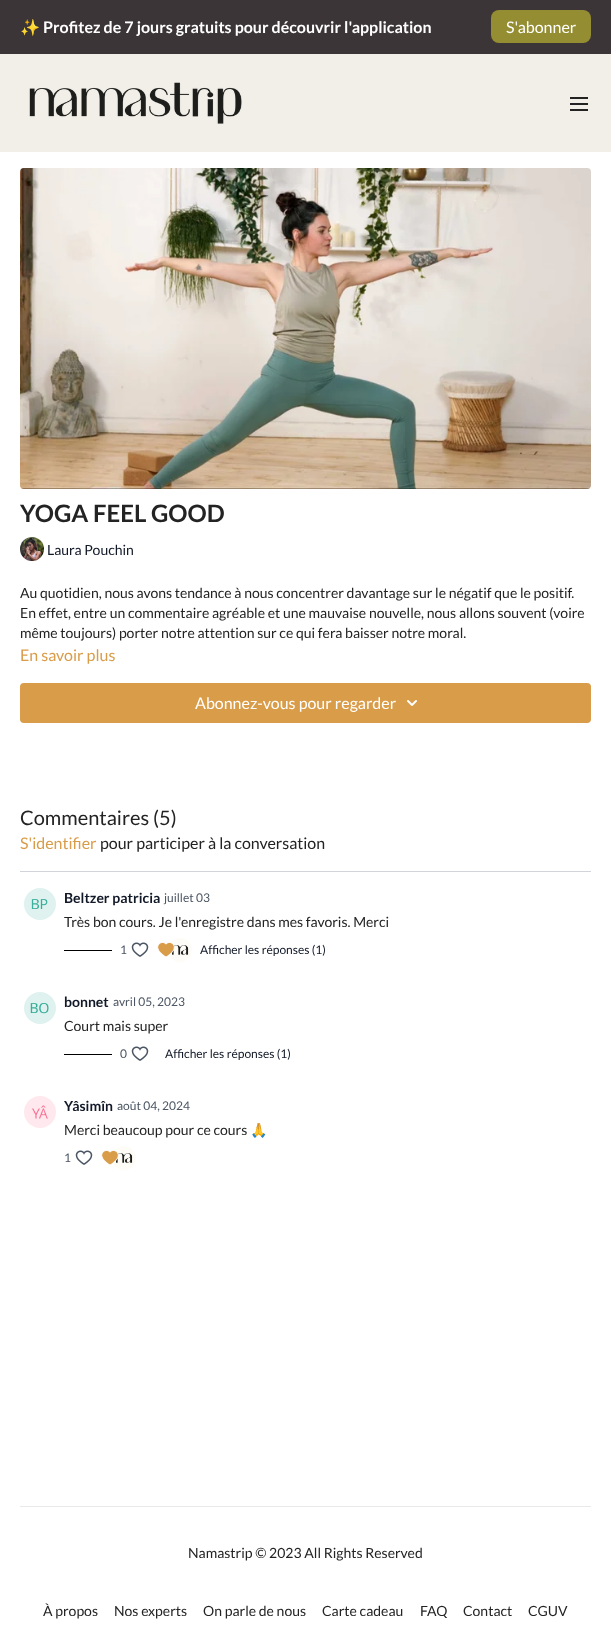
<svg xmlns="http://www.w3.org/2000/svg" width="611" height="1634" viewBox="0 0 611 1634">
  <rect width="100%" height="100%" fill="#fff"/>
  <path d="M0 0h611v54H0z" fill="#3c3538"/>
  <rect x="491" y="10" width="100" height="33" rx="8" fill="#948d32"/>
  <path d="M0 54h611v98H0z" fill="#f2efe8"/>
  <image x="29" y="82" width="213" height="42" href="img/1.png"/>
  <image x="570" y="97" width="18" height="14" href="img/2.png"/>
  <image x="20" y="168" width="571" height="321" href="img/3.png"/>
  <image x="20" y="537" width="24" height="24" href="img/4.png"/>
  <rect x="20" y="683" width="571" height="40" rx="4" fill="#d99c49"/>
  <image x="407" y="700" width="10" height="6" href="img/5.png"/>
  <path d="M20 871h571v1H20z" fill="#d1d5db"/>
  <image x="24" y="888" width="32" height="32" href="img/6.png"/>
  <path d="M64 950h48v1H64z" fill="#000"/>
  <image x="131" y="942" width="18" height="15" href="img/7.png"/>
  <image x="169" y="938" width="23" height="24" href="img/9.png"/>
  <image x="157" y="942" width="18" height="15" href="img/8.png"/>
  <image x="24" y="992" width="32" height="32" href="img/10.png"/>
  <path d="M64 1054h48v1H64z" fill="#000"/>
  <image x="131" y="1046" width="18" height="15" href="img/7.png"/>
  <image x="24" y="1096" width="32" height="32" href="img/11.png"/>
  <image x="75" y="1150" width="18" height="15" href="img/7.png"/>
  <image x="113" y="1146" width="23" height="24" href="img/13.png"/>
  <image x="101" y="1150" width="18" height="15" href="img/12.png"/>
  <path d="M20 1506h571v1H20z" fill="#e9e9e9"/>
  <text x="20" y="33" font-family="Noto Color Emoji" font-size="16" font-weight="bold" fill="#fff">✨</text>
  <text x="43" y="33" font-family="Lato" font-size="16" font-weight="bold" fill="#fff">Profitez de 7 jours gratuits pour découvrir l'application</text>
  <text x="506" y="33" font-family="Lato" font-size="16" fill="#fff">S'abonner</text>
  <text x="20" y="522" font-family="Lato" font-size="24" font-weight="bold" fill="#232323">YOGA FEEL GOOD</text>
  <text x="47" y="555" font-family="Lato" font-size="14" fill="#111827">Laura Pouchin</text>
  <g font-family="Lato" font-size="14" fill="#232323">
    <text x="20" y="598">Au quotidien, nous avons tendance à nous concentrer davantage sur le négatif que le positif.</text>
    <text x="20" y="618">En effet, entre un commentaire agréable et une mauvaise nouvelle, nous allons souvent (voire</text>
    <text x="20" y="638">même toujours) porter notre attention sur ce qui fera baisser notre moral.</text>
  </g>
  <text x="20" y="661" font-family="Lato" font-size="16" fill="#d99c49">En savoir plus</text>
  <text x="195" y="709" font-family="Lato" font-size="16" fill="#fff">Abonnez-vous pour regarder</text>
  <text x="20" y="825" font-family="Lato" font-size="20" fill="#232323">Commentaires (5)</text>
  <text x="20" y="849" font-family="Lato" font-size="16" fill="#d99c49">S'identifier</text>
  <text x="100" y="849" font-family="Lato" font-size="16" fill="#232323">pour participer à la conversation</text>
  <text x="64" y="903" font-family="Lato" font-size="14" font-weight="bold" fill="#111827">Beltzer patricia</text>
  <text x="164" y="902" font-family="Lato" font-size="12" fill="#4b5563">juillet 03</text>
  <text x="64" y="927" font-family="Lato" font-size="14" fill="#232323">Très bon cours. Je l'enregistre dans mes favoris. Merci</text>
  <text x="120" y="954" font-family="Lato" font-size="12" fill="#4b5563">1</text>
  <text x="200" y="954" font-family="Lato" font-size="12" fill="#111827">Afficher les réponses (1)</text>
  <text x="64" y="1007" font-family="Lato" font-size="14" font-weight="bold" fill="#111827">bonnet</text>
  <text x="113" y="1006" font-family="Lato" font-size="12" fill="#4b5563">avril 05, 2023</text>
  <text x="64" y="1031" font-family="Lato" font-size="14" fill="#232323">Court mais super</text>
  <text x="120" y="1058" font-family="Lato" font-size="12" fill="#4b5563">0</text>
  <text x="165" y="1058" font-family="Lato" font-size="12" fill="#111827">Afficher les réponses (1)</text>
  <text x="64" y="1111" font-family="Lato" font-size="14" font-weight="bold" fill="#111827">Yâsimîn</text>
  <text x="117" y="1110" font-family="Lato" font-size="12" fill="#4b5563">août 04, 2024</text>
  <text x="64" y="1135" font-family="Lato" font-size="14" fill="#232323">Merci beaucoup pour ce cours</text>
  <text x="250" y="1135" font-family="Noto Color Emoji" font-size="14" fill="#232323">🙏</text>
  <text x="64" y="1162" font-family="Lato" font-size="12" fill="#4b5563">1</text>
  <g font-family="Lato" font-size="14" fill="#232323">
    <text x="188" y="1558">Namastrip © 2023 All Rights Reserved</text>
    <text x="43" y="1616">À propos</text>
    <text x="114" y="1616">Nos experts</text>
    <text x="203" y="1616">On parle de nous</text>
    <text x="322" y="1616">Carte cadeau</text>
    <text x="420" y="1616">FAQ</text>
    <text x="463" y="1616">Contact</text>
    <text x="528" y="1616">CGUV</text>
  </g>
</svg>
